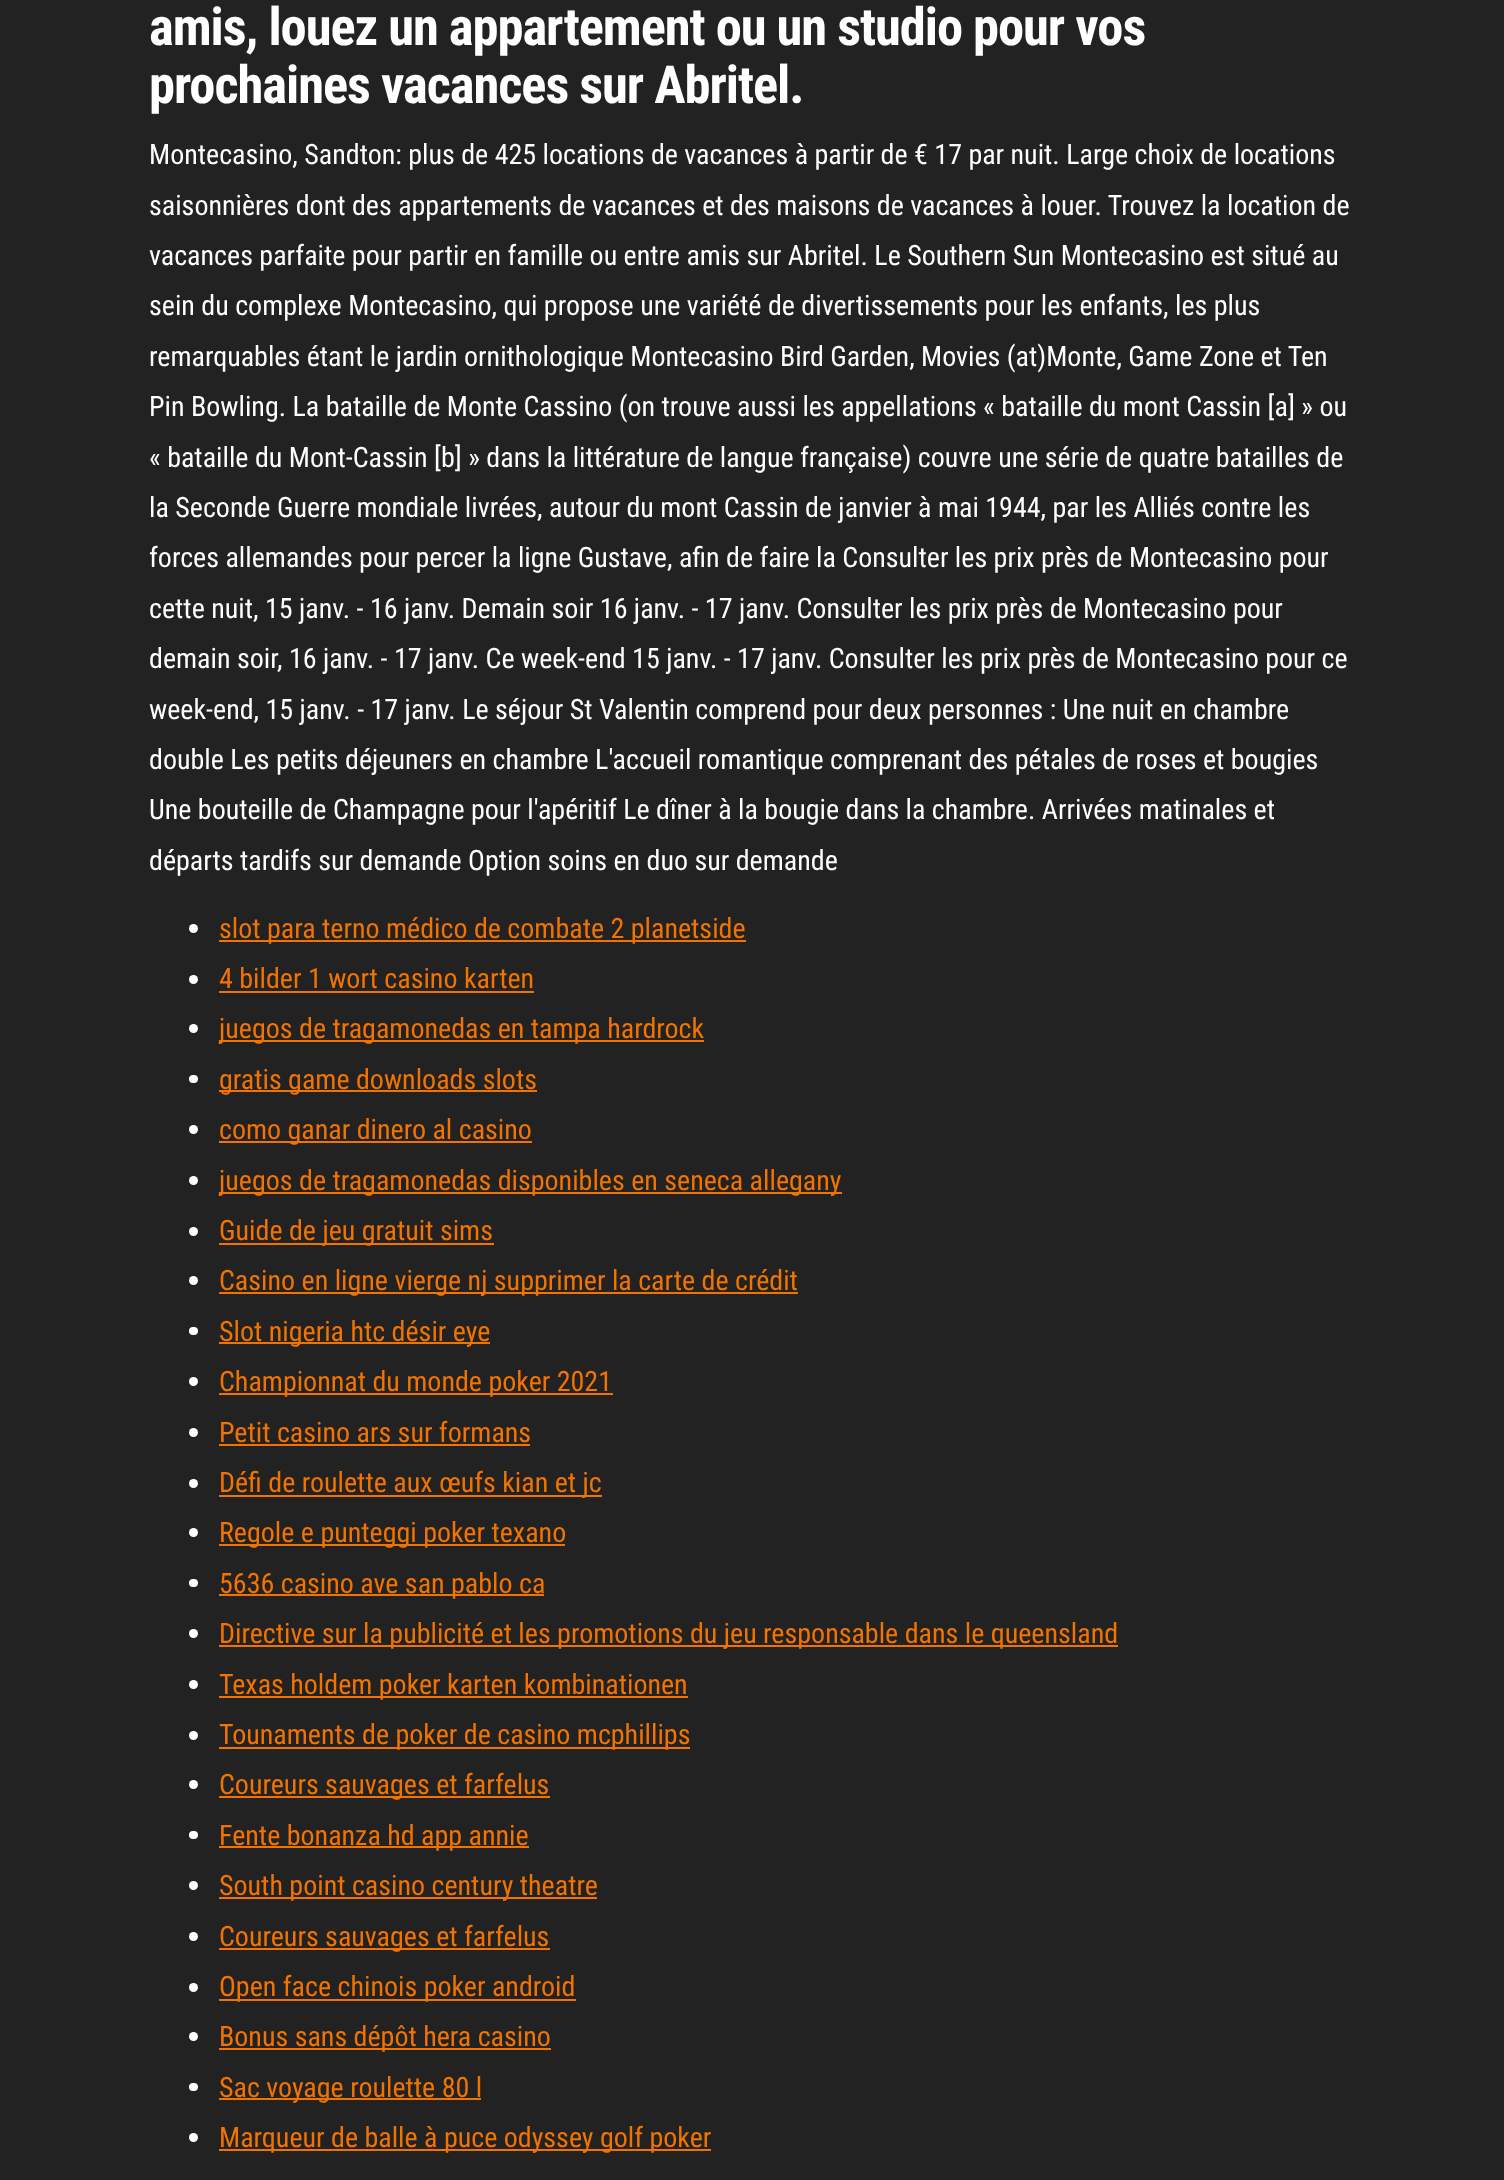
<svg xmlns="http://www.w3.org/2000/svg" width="1504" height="2180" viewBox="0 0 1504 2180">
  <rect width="100%" height="100%" fill="#222"/>
  <circle cx="193.5" cy="928.5" r="4.5" fill="#fff"/>
  <path d="M219 940h527v2H219z" fill="#f27300"/>
  <circle cx="193.5" cy="979.5" r="4.5" fill="#fff"/>
  <path d="M219 991h315v2H219z" fill="#f27300"/>
  <circle cx="193.5" cy="1028.5" r="4.5" fill="#fff"/>
  <path d="M219 1040h485v2H219z" fill="#f27300"/>
  <rect x="189" y="1075" width="9" height="8" rx="4" fill="#fff"/>
  <path d="M219 1090h318v2H219z" fill="#f27300"/>
  <circle cx="193.5" cy="1129.5" r="4.5" fill="#fff"/>
  <path d="M219 1141h313v2H219z" fill="#f27300"/>
  <circle cx="193.5" cy="1180.5" r="4.5" fill="#fff"/>
  <path d="M219 1192h623v2H219z" fill="#f27300"/>
  <circle cx="193.5" cy="1231.5" r="4.5" fill="#fff"/>
  <path d="M219 1243h275v2H219z" fill="#f27300"/>
  <circle cx="193.5" cy="1280.5" r="4.5" fill="#fff"/>
  <path d="M219 1292h579v2H219z" fill="#f27300"/>
  <rect x="189" y="1327" width="9" height="8" rx="4" fill="#fff"/>
  <path d="M219 1342h271v2H219z" fill="#f27300"/>
  <circle cx="193.5" cy="1381.5" r="4.5" fill="#fff"/>
  <path d="M219 1393h394v2H219z" fill="#f27300"/>
  <circle cx="193.5" cy="1432.5" r="4.5" fill="#fff"/>
  <path d="M219 1444h311v2H219z" fill="#f27300"/>
  <circle cx="193.5" cy="1483.5" r="4.5" fill="#fff"/>
  <path d="M219 1495h383v2H219z" fill="#f27300"/>
  <circle cx="193.5" cy="1532.5" r="4.5" fill="#fff"/>
  <path d="M219 1544h346v2H219z" fill="#f27300"/>
  <rect x="189" y="1579" width="9" height="8" rx="4" fill="#fff"/>
  <path d="M219 1594h325v2H219z" fill="#f27300"/>
  <circle cx="193.5" cy="1633.5" r="4.5" fill="#fff"/>
  <path d="M219 1645h899v2H219z" fill="#f27300"/>
  <circle cx="193.5" cy="1684.5" r="4.5" fill="#fff"/>
  <path d="M219 1696h469v2H219z" fill="#f27300"/>
  <circle cx="193.5" cy="1735.5" r="4.5" fill="#fff"/>
  <path d="M219 1747h471v2H219z" fill="#f27300"/>
  <circle cx="193.5" cy="1784.5" r="4.5" fill="#fff"/>
  <path d="M219 1796h331v2H219z" fill="#f27300"/>
  <rect x="189" y="1831" width="9" height="8" rx="4" fill="#fff"/>
  <path d="M219 1846h310v2H219z" fill="#f27300"/>
  <circle cx="193.5" cy="1885.5" r="4.5" fill="#fff"/>
  <path d="M219 1897h378v2H219z" fill="#f27300"/>
  <circle cx="193.5" cy="1936.5" r="4.5" fill="#fff"/>
  <path d="M219 1948h331v2H219z" fill="#f27300"/>
  <circle cx="193.5" cy="1987.5" r="4.5" fill="#fff"/>
  <path d="M219 1999h357v2H219z" fill="#f27300"/>
  <circle cx="193.5" cy="2036.5" r="4.5" fill="#fff"/>
  <path d="M219 2048h332v2H219z" fill="#f27300"/>
  <rect x="189" y="2083" width="9" height="8" rx="4" fill="#fff"/>
  <path d="M219 2098h262v2H219z" fill="#f27300"/>
  <circle cx="193.5" cy="2137.5" r="4.5" fill="#fff"/>
  <path d="M219 2149h492v2H219z" fill="#f27300"/>
  <g font-family="Roboto Condensed" font-size="52.5" font-weight="bold" letter-spacing="-1.05" fill="#fff">
    <text x="149" y="45">amis, louez un appartement ou un studio pour vos</text>
    <text x="149" y="103">prochaines vacances sur Abritel.</text>
  </g>
  <g font-family="Roboto Condensed" font-size="28" fill="#fff">
    <text x="149" y="164">Montecasino, Sandton: plus de 425 locations de vacances à partir de € 17 par nuit. Large choix de locations</text>
    <text x="149" y="215">saisonnières dont des appartements de vacances et des maisons de vacances à louer. Trouvez la location de</text>
    <text x="149" y="265">vacances parfaite pour partir en famille ou entre amis sur Abritel. Le Southern Sun Montecasino est situé au</text>
    <text x="149" y="315">sein du complexe Montecasino, qui propose une variété de divertissements pour les enfants, les plus</text>
    <text x="149" y="366">remarquables étant le jardin ornithologique Montecasino Bird Garden, Movies (at)Monte, Game Zone et Ten</text>
    <text x="149" y="416">Pin Bowling. La bataille de Monte Cassino (on trouve aussi les appellations « bataille du mont Cassin [a] » ou</text>
    <text x="149" y="467">« bataille du Mont-Cassin [b] » dans la littérature de langue française) couvre une série de quatre batailles de</text>
    <text x="149" y="517">la Seconde Guerre mondiale livrées, autour du mont Cassin de janvier à mai 1944, par les Alliés contre les</text>
    <text x="149" y="567">forces allemandes pour percer la ligne Gustave, afin de faire la Consulter les prix près de Montecasino pour</text>
    <text x="149" y="618">cette nuit, 15 janv. - 16 janv. Demain soir 16 janv. - 17 janv. Consulter les prix près de Montecasino pour</text>
    <text x="149" y="668">demain soir, 16 janv. - 17 janv. Ce week-end 15 janv. - 17 janv. Consulter les prix près de Montecasino pour ce</text>
    <text x="149" y="719">week-end, 15 janv. - 17 janv. Le séjour St Valentin comprend pour deux personnes : Une nuit en chambre</text>
    <text x="149" y="769">double Les petits déjeuners en chambre L'accueil romantique comprenant des pétales de roses et bougies</text>
    <text x="149" y="819">Une bouteille de Champagne pour l'apéritif Le dîner à la bougie dans la chambre. Arrivées matinales et</text>
    <text x="149" y="870">départs tardifs sur demande Option soins en duo sur demande</text>
  </g>
  <g font-family="Roboto Condensed" font-size="28" fill="#f27300">
    <text x="219" y="938">slot para terno médico de combate 2 planetside</text>
    <text x="219" y="988">4 bilder 1 wort casino karten</text>
    <text x="219" y="1038">juegos de tragamonedas en tampa hardrock</text>
    <text x="219" y="1089">gratis game downloads slots</text>
    <text x="219" y="1139">como ganar dinero al casino</text>
    <text x="219" y="1190">juegos de tragamonedas disponibles en seneca allegany</text>
    <text x="219" y="1240">Guide de jeu gratuit sims</text>
    <text x="219" y="1290">Casino en ligne vierge nj supprimer la carte de crédit</text>
    <text x="219" y="1341">Slot nigeria htc désir eye</text>
    <text x="219" y="1391">Championnat du monde poker 2021</text>
    <text x="219" y="1442">Petit casino ars sur formans</text>
    <text x="219" y="1492">Défi de roulette aux œufs kian et jc</text>
    <text x="219" y="1542">Regole e punteggi poker texano</text>
    <text x="219" y="1593">5636 casino ave san pablo ca</text>
    <text x="219" y="1643">Directive sur la publicité et les promotions du jeu responsable dans le queensland</text>
    <text x="219" y="1694">Texas holdem poker karten kombinationen</text>
    <text x="219" y="1744">Tounaments de poker de casino mcphillips</text>
    <text x="219" y="1794">Coureurs sauvages et farfelus</text>
    <text x="219" y="1845">Fente bonanza hd app annie</text>
    <text x="219" y="1895">South point casino century theatre</text>
    <text x="219" y="1946">Coureurs sauvages et farfelus</text>
    <text x="219" y="1996">Open face chinois poker android</text>
    <text x="219" y="2046">Bonus sans dépôt hera casino</text>
    <text x="219" y="2097">Sac voyage roulette 80 l</text>
    <text x="219" y="2147">Marqueur de balle à puce odyssey golf poker</text>
  </g>
</svg>
